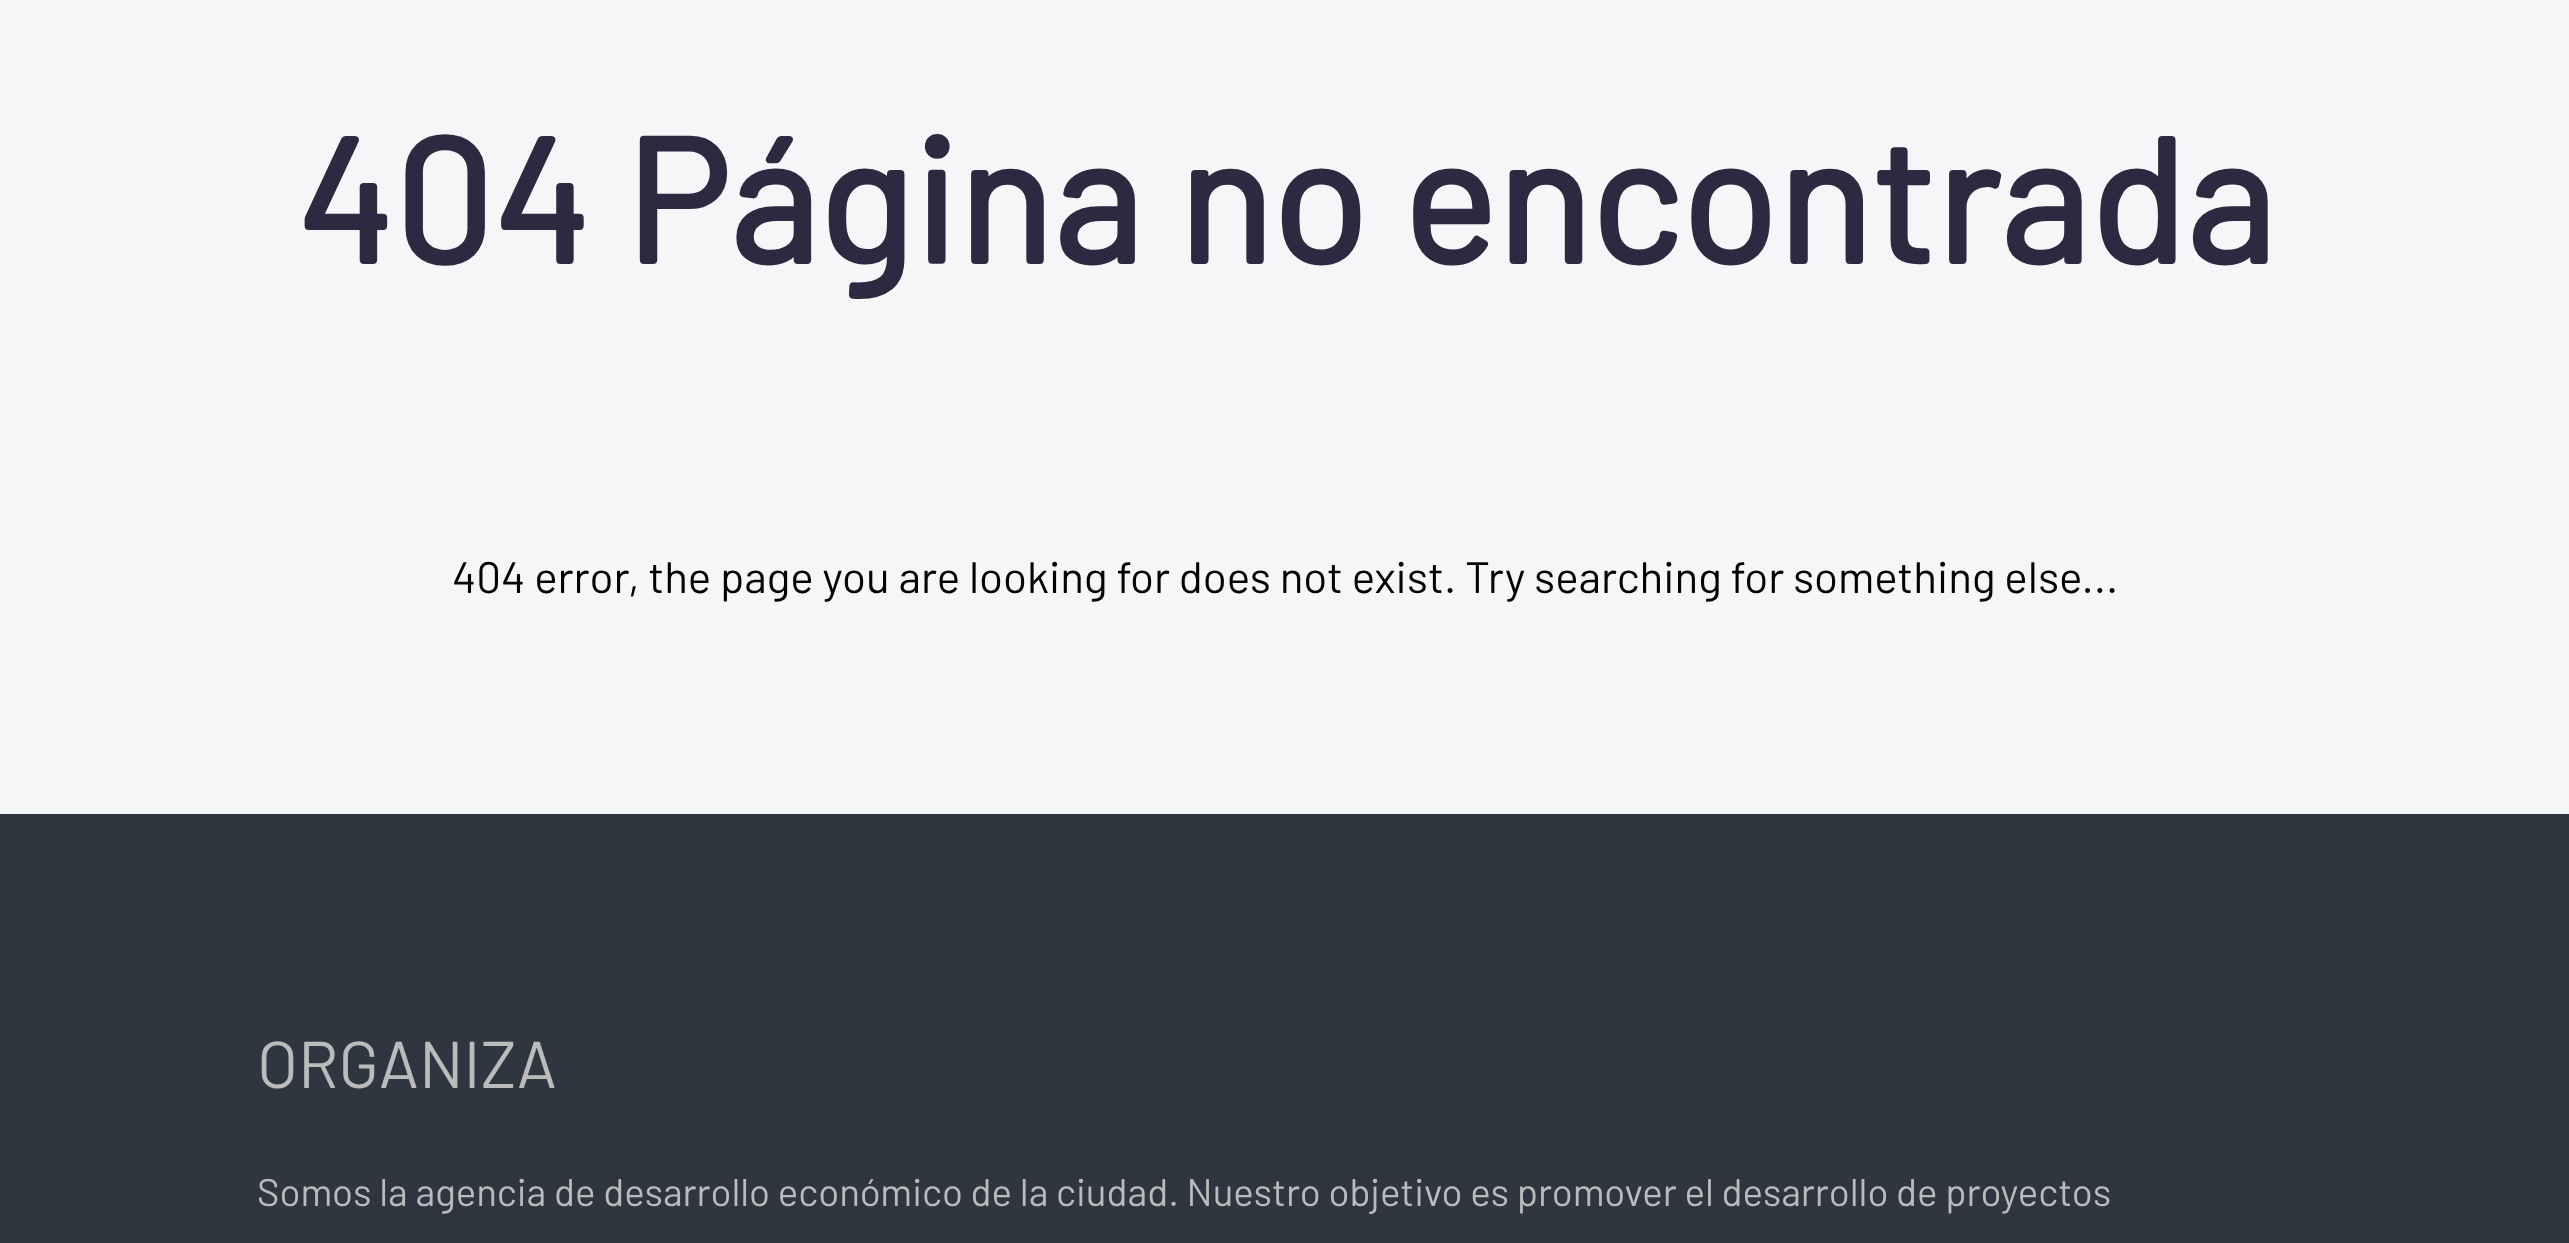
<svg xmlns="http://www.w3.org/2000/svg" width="2569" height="1243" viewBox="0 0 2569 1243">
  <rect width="100%" height="100%" fill="#f5f6f8"/>
  <path d="M0 814h2569v429H0z" fill="#303640"/>
  <text x="296" y="264" font-family="Barlow" font-size="176" font-weight="bold" fill="#2d2940">404 Página no encontrada</text>
  <text x="452" y="593" font-family="Barlow" font-size="44" fill="#030303">404 error, the page you are looking for does not exist. Try searching for something else...</text>
  <text x="257" y="1088" font-family="Barlow" font-size="66" fill="#bbb">ORGANIZA</text>
  <text x="257" y="1206" font-family="Barlow" font-size="38.5" fill="#bbb">Somos la agencia de desarrollo económico de la ciudad. Nuestro objetivo es promover el desarrollo de proyectos</text>
</svg>
